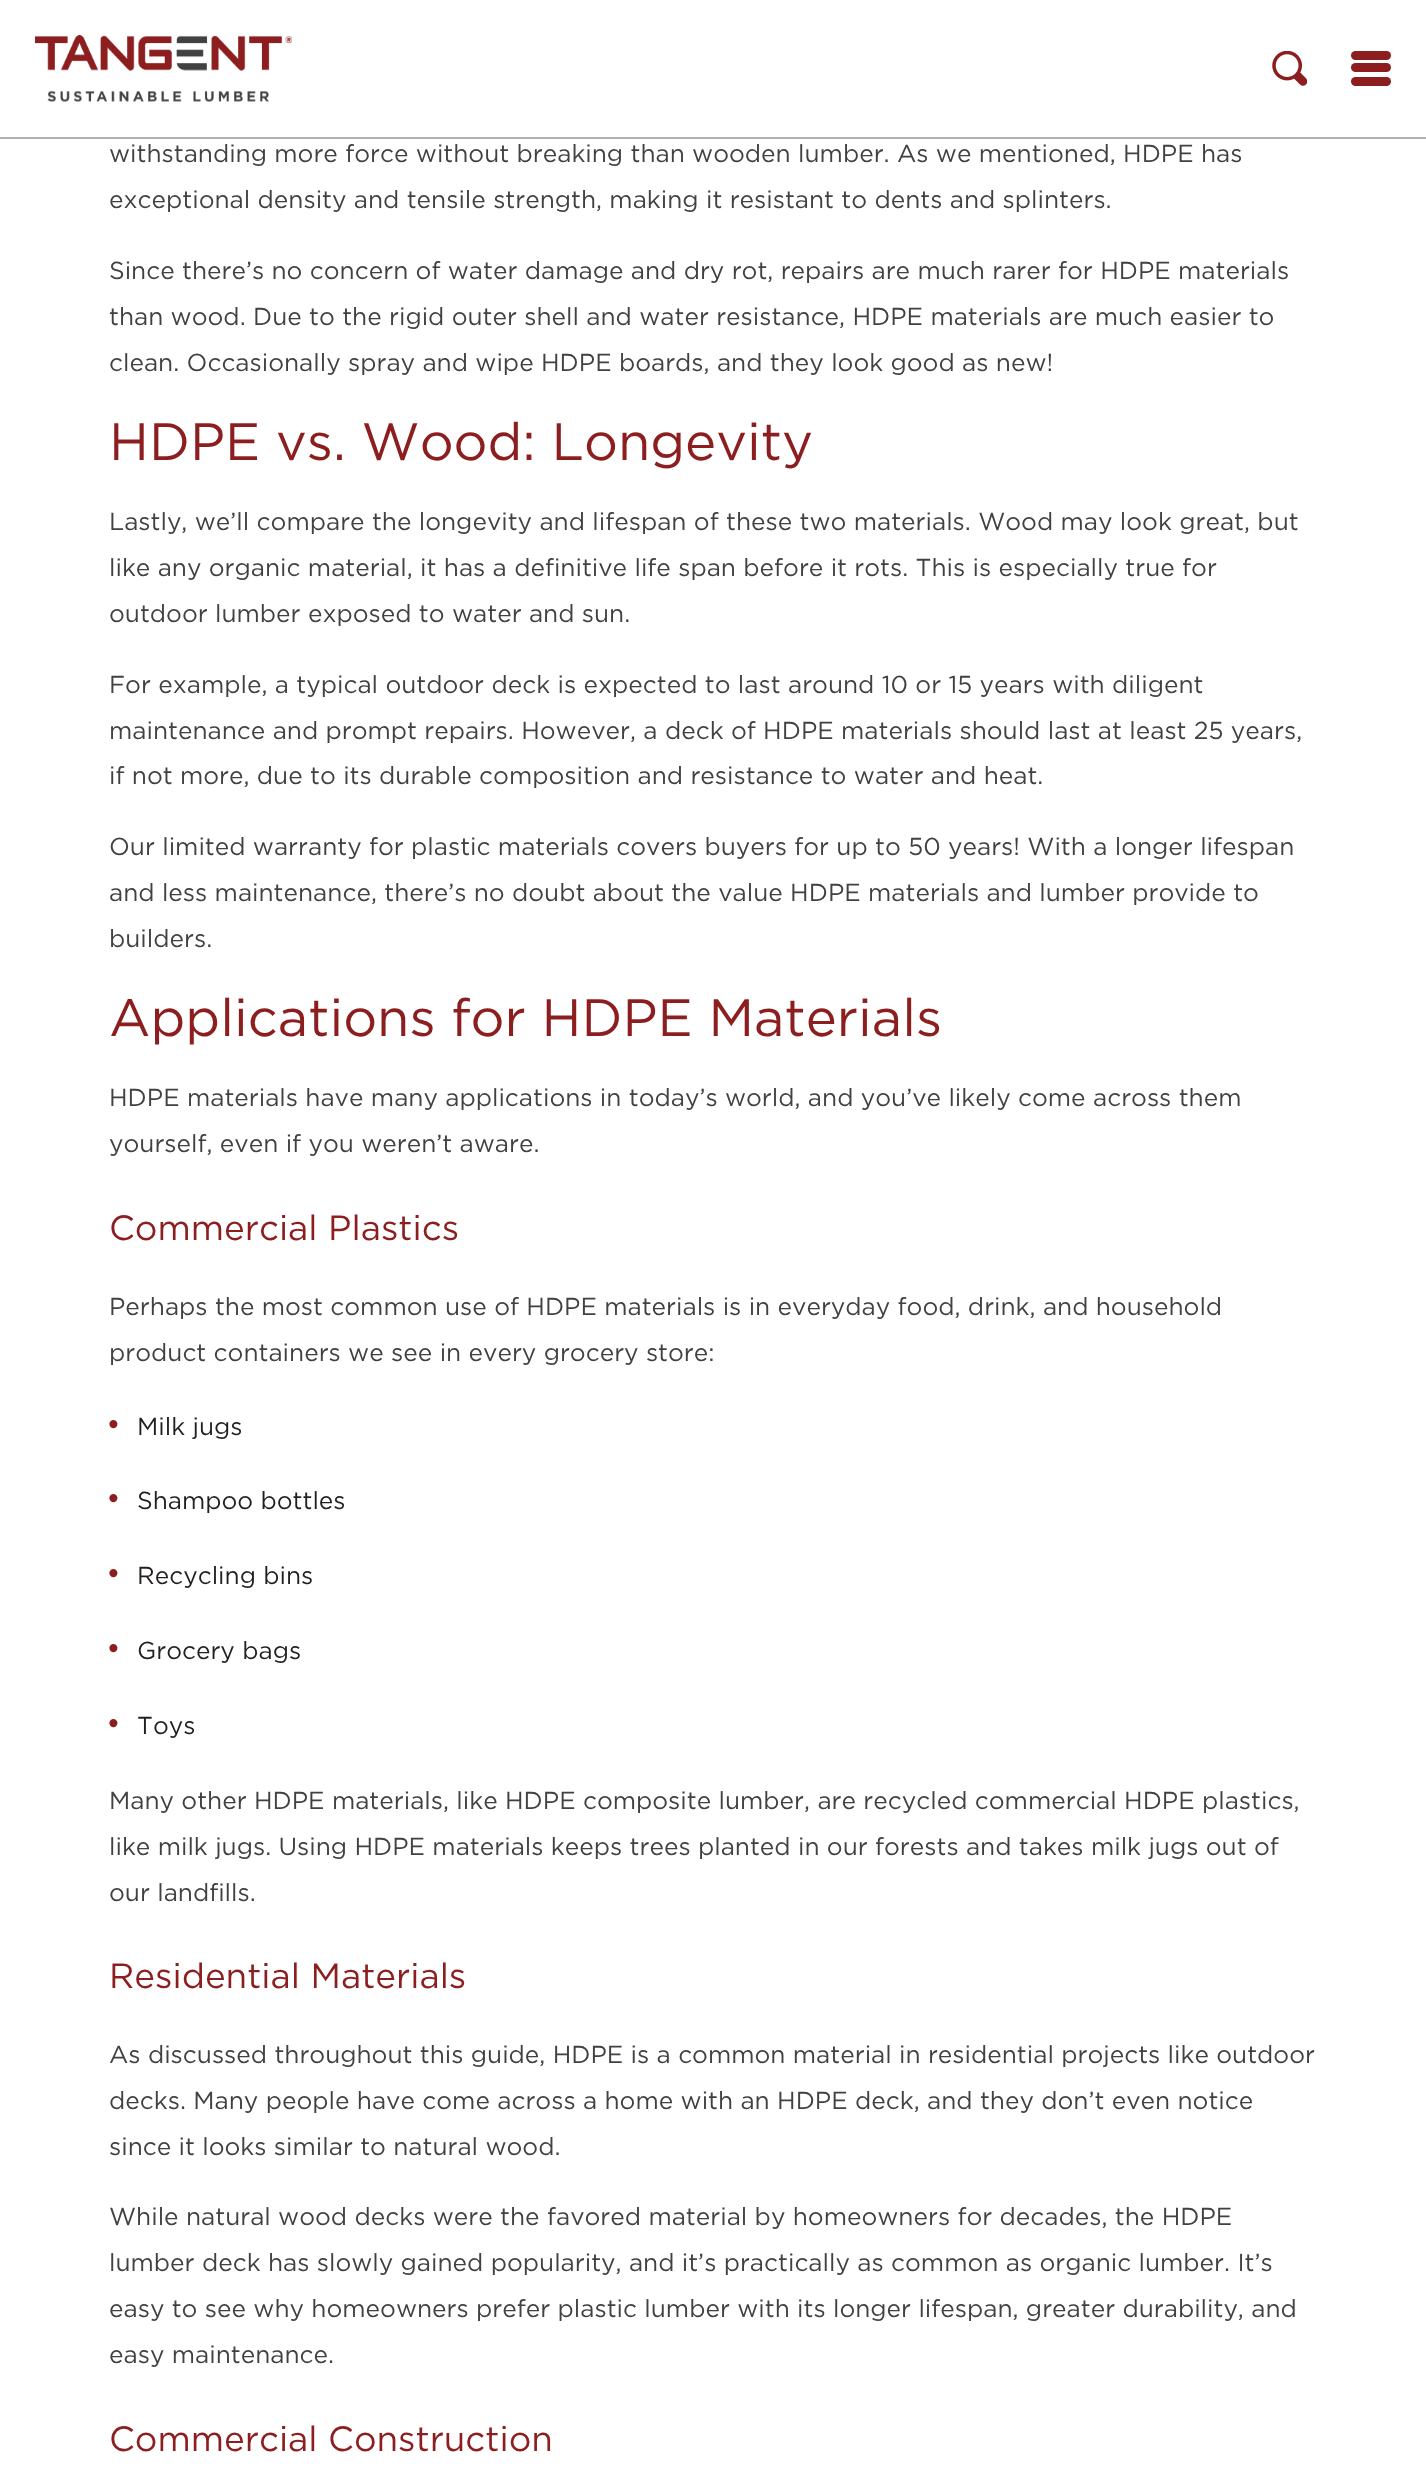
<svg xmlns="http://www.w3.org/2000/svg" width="1426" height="2472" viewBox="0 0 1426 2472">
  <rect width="100%" height="100%" fill="#fff"/>
  <path d="M0 137h1426v2H0z" fill="#b3afb7"/>
  <image x="35" y="35" width="257" height="67" href="img/1.png"/>
  <image x="1272" y="51" width="35" height="35" href="img/2.png"/>
  <rect x="1351" y="51" width="40" height="9" rx="4.5" fill="#8c1e1f"/>
  <rect x="1351" y="63" width="40" height="9" rx="4.5" fill="#8c1e1f"/>
  <rect x="1351" y="77" width="40" height="9" rx="4.5" fill="#8c1e1f"/>
  <g font-family="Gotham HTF" font-size="24.5" fill="#414042">
    <text x="109" y="162">withstanding more force without breaking than wooden lumber. As we mentioned, HDPE has</text>
    <text x="109" y="208">exceptional density and tensile strength, making it resistant to dents and splinters.</text>
    <text x="109" y="279">Since there’s no concern of water damage and dry rot, repairs are much rarer for HDPE materials</text>
    <text x="109" y="325">than wood. Due to the rigid outer shell and water resistance, HDPE materials are much easier to</text>
    <text x="109" y="371">clean. Occasionally spray and wipe HDPE boards, and they look good as new!</text>
  </g>
  <text x="109" y="460" font-family="Gotham HTF" font-size="52.5" fill="#8c1e1f">HDPE vs. Wood: Longevity</text>
  <g font-family="Gotham HTF" font-size="24.5" fill="#414042">
    <text x="109" y="530">Lastly, we’ll compare the longevity and lifespan of these two materials. Wood may look great, but</text>
    <text x="109" y="576">like any organic material, it has a definitive life span before it rots. This is especially true for</text>
    <text x="109" y="622">outdoor lumber exposed to water and sun.</text>
    <text x="109" y="693">For example, a typical outdoor deck is expected to last around 10 or 15 years with diligent</text>
    <text x="109" y="739">maintenance and prompt repairs. However, a deck of HDPE materials should last at least 25 years,</text>
    <text x="109" y="784">if not more, due to its durable composition and resistance to water and heat.</text>
    <text x="109" y="855">Our limited warranty for plastic materials covers buyers for up to 50 years! With a longer lifespan</text>
    <text x="109" y="901">and less maintenance, there’s no doubt about the value HDPE materials and lumber provide to</text>
    <text x="109" y="947">builders.</text>
  </g>
  <text x="109" y="1036" font-family="Gotham HTF" font-size="52.5" fill="#8c1e1f">Applications for HDPE Materials</text>
  <g font-family="Gotham HTF" font-size="24.5" fill="#414042">
    <text x="109" y="1106">HDPE materials have many applications in today’s world, and you’ve likely come across them</text>
    <text x="109" y="1152">yourself, even if you weren’t aware.</text>
  </g>
  <text x="109" y="1240" font-family="Gotham HTF" font-size="35" fill="#8c1e1f">Commercial Plastics</text>
  <g font-family="Gotham HTF" font-size="24.5" fill="#414042">
    <text x="109" y="1315">Perhaps the most common use of HDPE materials is in everyday food, drink, and household</text>
    <text x="109" y="1361">product containers we see in every grocery store:</text>
  </g>
  <text x="106" y="1435" font-family="Gotham HTF" font-size="31" fill="#8c1e1f">•</text>
  <text x="137" y="1435" font-family="Gotham HTF" font-size="24.5" fill="#231f20">Milk jugs</text>
  <text x="106" y="1509" font-family="Gotham HTF" font-size="31" fill="#8c1e1f">•</text>
  <text x="137" y="1509" font-family="Gotham HTF" font-size="24.5" fill="#231f20">Shampoo bottles</text>
  <text x="106" y="1584" font-family="Gotham HTF" font-size="31" fill="#8c1e1f">•</text>
  <text x="137" y="1584" font-family="Gotham HTF" font-size="24.5" fill="#231f20">Recycling bins</text>
  <text x="106" y="1659" font-family="Gotham HTF" font-size="31" fill="#8c1e1f">•</text>
  <text x="137" y="1659" font-family="Gotham HTF" font-size="24.5" fill="#231f20">Grocery bags</text>
  <text x="106" y="1734" font-family="Gotham HTF" font-size="31" fill="#8c1e1f">•</text>
  <text x="137" y="1734" font-family="Gotham HTF" font-size="24.5" fill="#231f20">Toys</text>
  <g font-family="Gotham HTF" font-size="24.5" fill="#414042">
    <text x="109" y="1809">Many other HDPE materials, like HDPE composite lumber, are recycled commercial HDPE plastics,</text>
    <text x="109" y="1855">like milk jugs. Using HDPE materials keeps trees planted in our forests and takes milk jugs out of</text>
    <text x="109" y="1901">our landfills.</text>
  </g>
  <text x="109" y="1988" font-family="Gotham HTF" font-size="35" fill="#8c1e1f">Residential Materials</text>
  <g font-family="Gotham HTF" font-size="24.5" fill="#414042">
    <text x="109" y="2063">As discussed throughout this guide, HDPE is a common material in residential projects like outdoor</text>
    <text x="109" y="2109">decks. Many people have come across a home with an HDPE deck, and they don’t even notice</text>
    <text x="109" y="2155">since it looks similar to natural wood.</text>
    <text x="109" y="2225">While natural wood decks were the favored material by homeowners for decades, the HDPE</text>
    <text x="109" y="2271">lumber deck has slowly gained popularity, and it’s practically as common as organic lumber. It’s</text>
    <text x="109" y="2317">easy to see why homeowners prefer plastic lumber with its longer lifespan, greater durability, and</text>
    <text x="109" y="2363">easy maintenance.</text>
  </g>
  <text x="109" y="2451" font-family="Gotham HTF" font-size="35" fill="#8c1e1f">Commercial Construction</text>
</svg>
